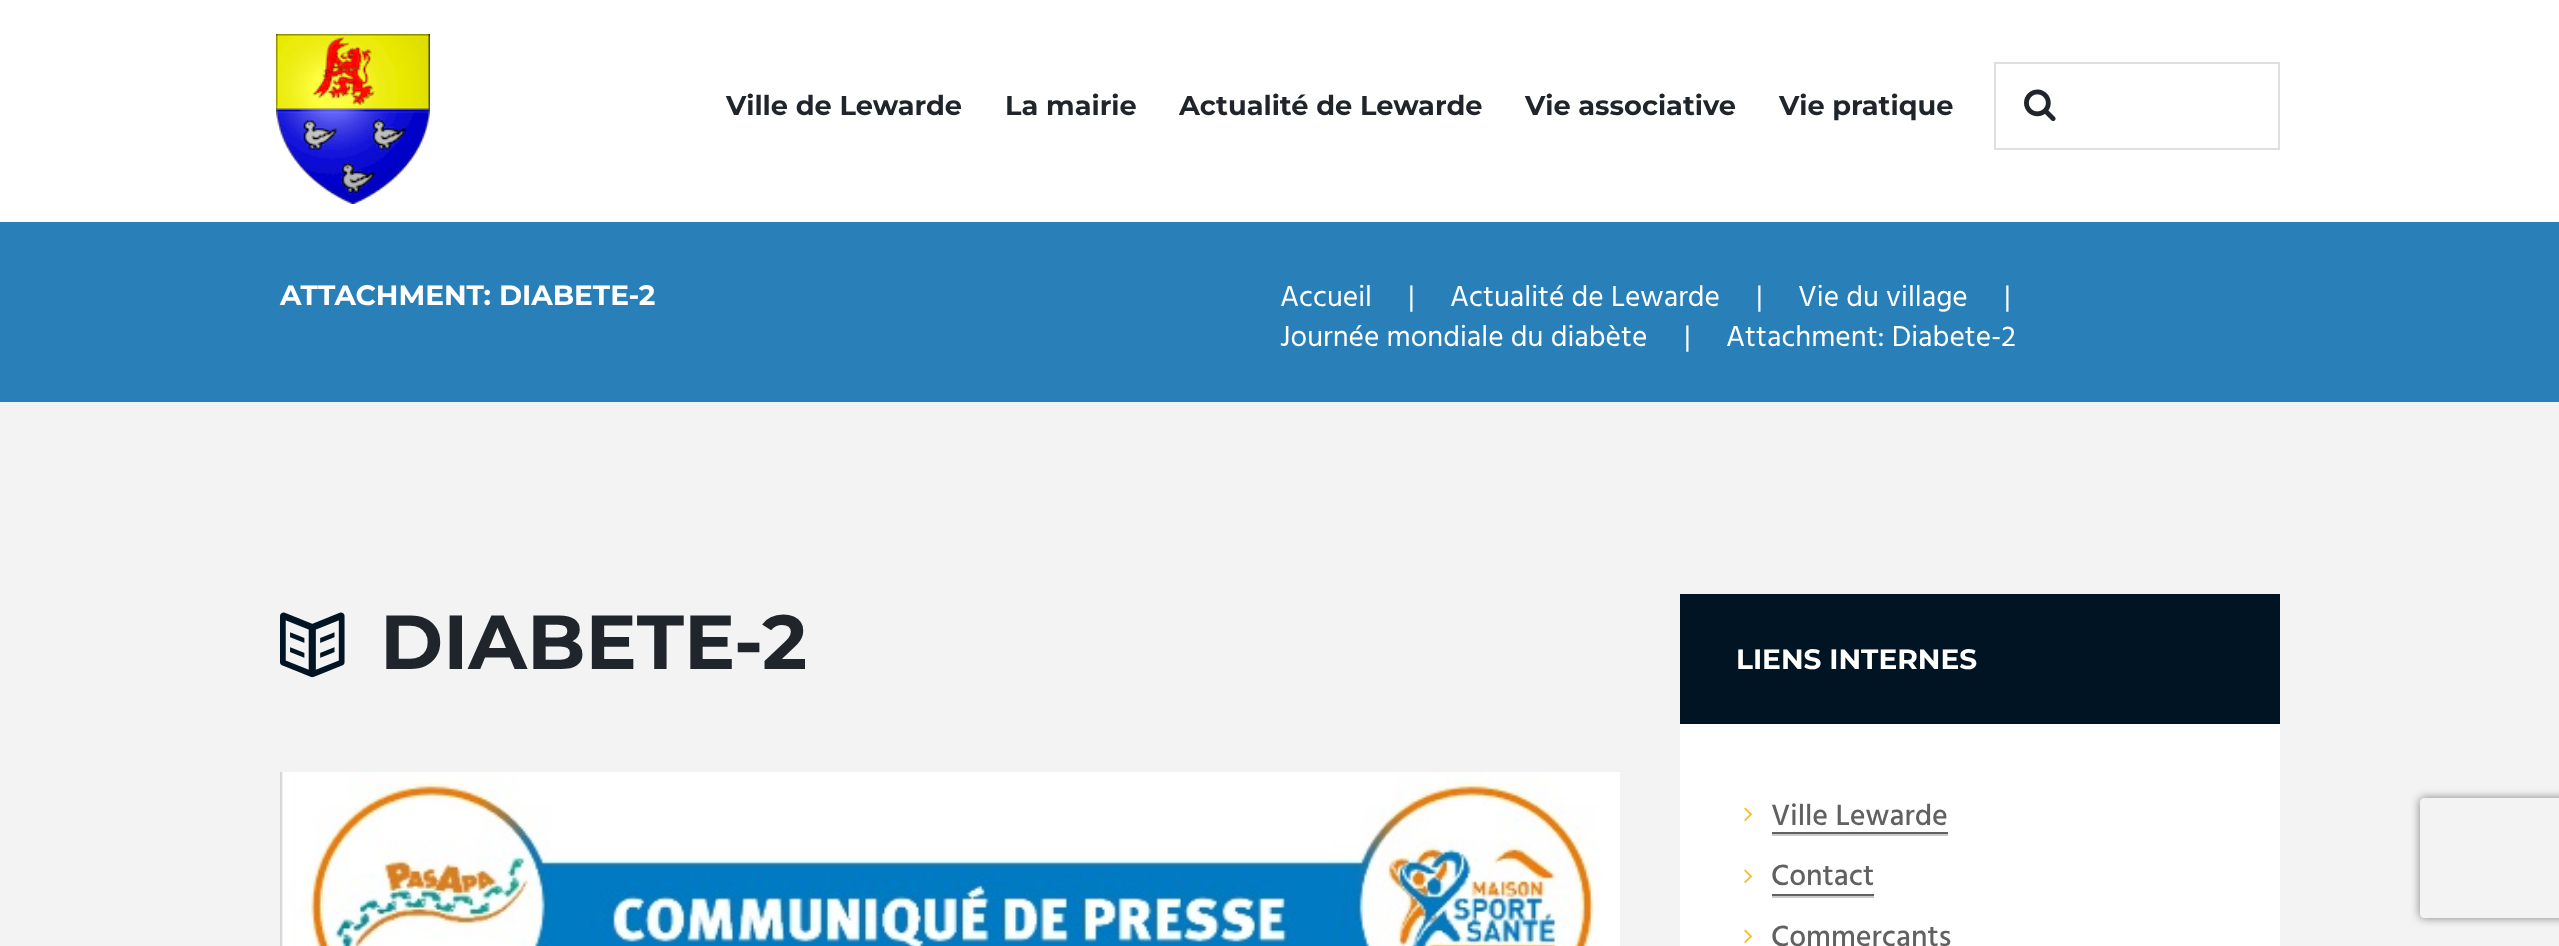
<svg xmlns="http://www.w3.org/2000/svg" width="2559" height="946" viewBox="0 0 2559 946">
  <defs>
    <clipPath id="clip1"><path d="M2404 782H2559V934H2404ZM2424 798H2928C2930 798 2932 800 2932 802V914C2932 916 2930 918 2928 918H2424C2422 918 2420 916 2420 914V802C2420 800 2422 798 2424 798Z" clip-rule="evenodd"/></clipPath>
  </defs>
  <rect width="100%" height="100%" fill="#f3f3f3"/>
  <path d="M0 0h2559v222H0z" fill="#fff"/>
  <image x="276" y="34" width="154" height="170" href="img/1.png"/>
  <path d="M1995 63h284v86H1995z" fill="none" stroke="#dfdfdf" stroke-width="2"/>
  <image x="2024" y="89" width="32" height="33" href="img/2.png"/>
  <path d="M0 222h2559v180H0z" fill="#2980b9"/>
  <image x="280" y="612" width="65" height="66" href="img/3.png"/>
  <image x="280" y="772" width="1340" height="174" href="img/4.png"/>
  <path d="M1680 724h600v222H1680z" fill="#fff"/>
  <path d="M1680 594h600v130H1680z" fill="#011424"/>
  <image x="1744" y="807" width="8" height="15" href="img/5.png"/>
  <path d="M1772 834h176v2H1772z" fill="#ccc"/>
  <path d="M1772 832h176v2H1772z" fill="#616161"/>
  <image x="1744" y="869" width="8" height="15" href="img/5.png"/>
  <path d="M1772 896h102v2H1772z" fill="#ccc"/>
  <path d="M1772 894h102v2H1772z" fill="#616161"/>
  <image x="1744" y="929" width="8" height="15" href="img/5.png"/>
  <g clip-path="url(#clip1)">
    <rect x="2420" y="798" width="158" height="120" rx="4" fill="#808080" filter="blur(5px)"/>
  </g>
  <g font-family="Montserrat" font-size="27.25" font-weight="bold" fill="#1f252b">
    <text x="726" y="115">Ville de Lewarde</text>
    <text x="1005" y="115">La mairie</text>
    <text x="1179" y="115">Actualité de Lewarde</text>
    <text x="1525" y="115">Vie associative</text>
    <text x="1779" y="115">Vie pratique</text>
  </g>
  <text x="280" y="305" font-family="Montserrat" font-size="28" font-weight="bold" fill="#fff">ATTACHMENT: DIABETE-2</text>
  <g font-family="Hind" font-size="29.5" fill="#fff">
    <text x="1280" y="306">Accueil</text>
    <text x="1408" y="306">|</text>
    <text x="1450" y="306">Actualité de Lewarde</text>
    <text x="1756" y="306">|</text>
    <text x="1798" y="306">Vie du village</text>
    <text x="2004" y="306">|</text>
    <text x="1280" y="346">Journée mondiale du diabète</text>
    <text x="1684" y="346">|</text>
    <text x="1726" y="346">Attachment: Diabete-2</text>
  </g>
  <text x="380" y="669" font-family="Montserrat" font-size="76.5" font-weight="bold" fill="#1f252b">DIABETE-2</text>
  <text x="1736" y="669" font-family="Montserrat" font-size="28" font-weight="bold" fill="#fff">LIENS INTERNES</text>
  <g font-family="Hind" font-size="30" font-weight="500" fill="#616161">
    <text x="1771" y="825">Ville Lewarde</text>
    <text x="1771" y="885">Contact</text>
    <text x="1771" y="946">Commerçants</text>
  </g>
</svg>
